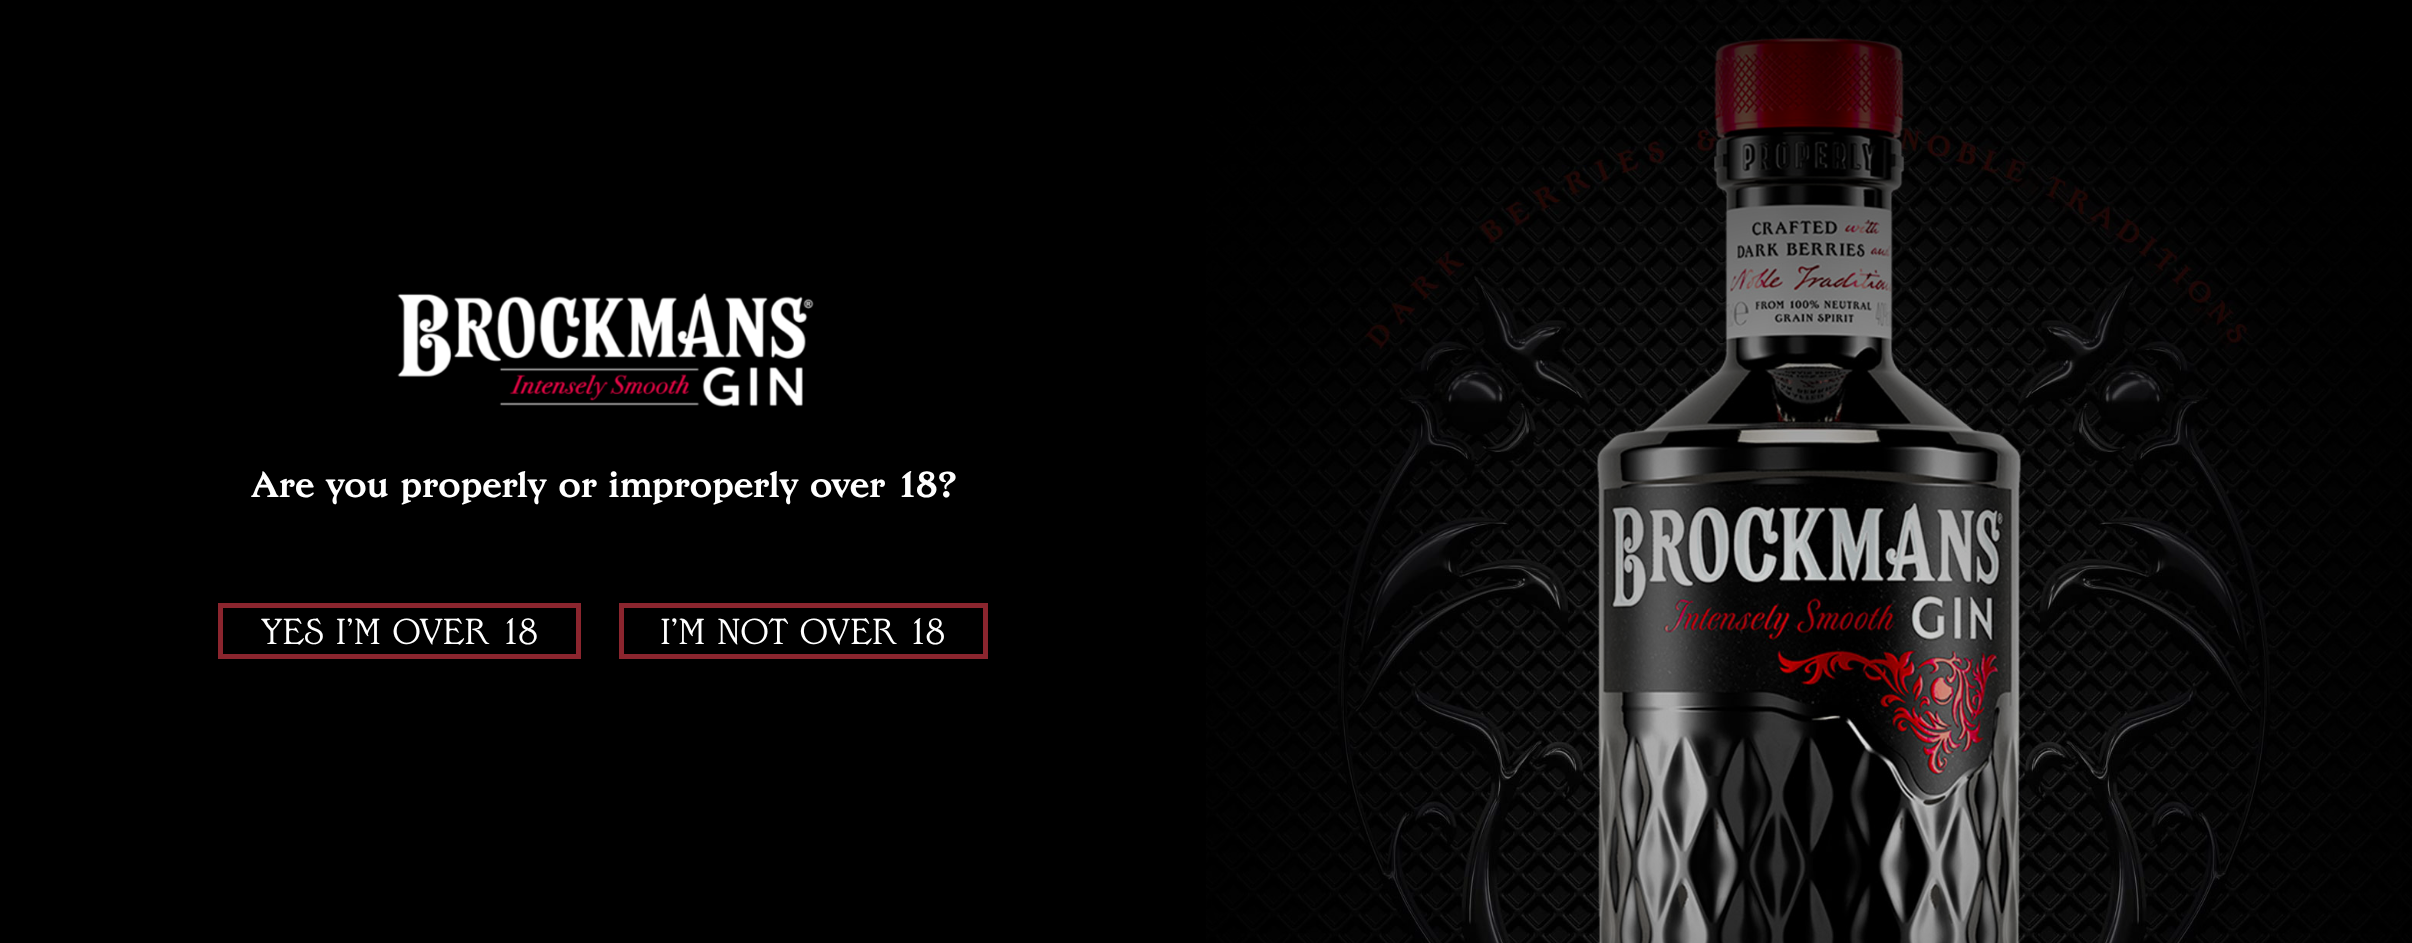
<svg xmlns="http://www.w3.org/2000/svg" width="2412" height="943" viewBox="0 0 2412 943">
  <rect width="100%" height="100%" fill="#000"/>
  <image x="397" y="293" width="417" height="114" href="img/1.png"/>
  <path d="M220.5 605.5h358v51H220.5z" fill="none" stroke="#8b252e" stroke-width="5"/>
  <path d="M621.5 605.5h364v51H621.5z" fill="none" stroke="#8b252e" stroke-width="5"/>
  <image x="1206" y="0" width="1206" height="943" href="img/2.png"/>
  <text x="251" y="497" font-family="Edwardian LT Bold" font-size="37.75" font-weight="bold" fill="#fff">Are you properly or improperly over 18?</text>
  <g font-family="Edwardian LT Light" font-size="37.75" font-weight="300" fill="#fff">
    <text x="261" y="644">YES I’M OVER 18</text>
    <text x="660" y="644">I’M NOT OVER 18</text>
  </g>
</svg>
